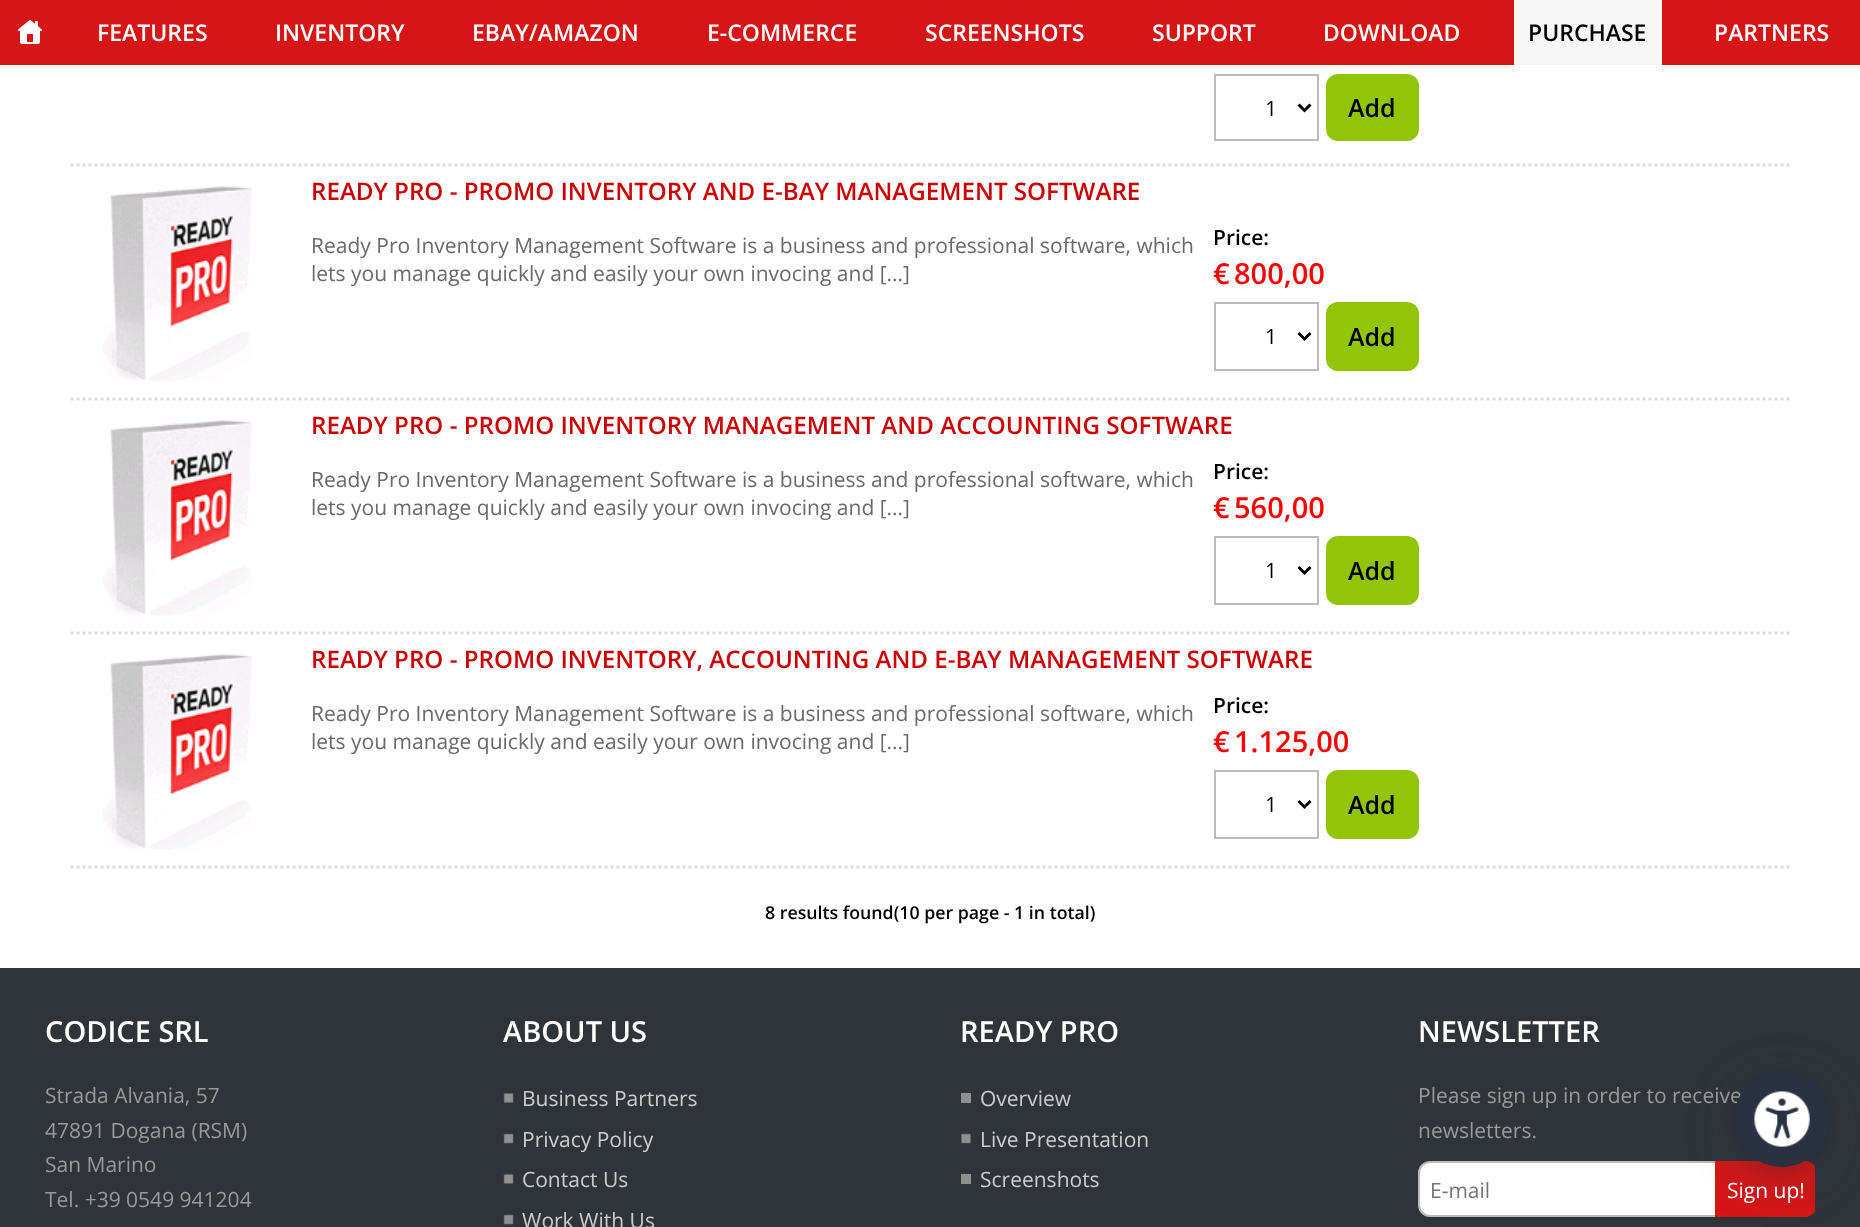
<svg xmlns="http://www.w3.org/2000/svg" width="1860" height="1227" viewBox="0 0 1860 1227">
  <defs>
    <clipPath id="clip1"><path d="M1418 1077h397v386H1418z"/></clipPath>
  </defs>
  <rect width="100%" height="100%" fill="#fff"/>
  <path d="M0 0h1860v65H0z" fill="#d61616"/>
  <image x="18" y="20" width="24" height="24" href="img/1.png"/>
  <path d="M1514 0h148v65H1514z" fill="#f6f6f6"/>
  <path d="M70.5 165H1789.5" fill="none" stroke="#ddd" stroke-width="3" stroke-dasharray="3 3"/>
  <path d="M1215 75h103v65H1215z" fill="none" stroke="#bbb" stroke-width="2"/>
  <path d="M1298.5 104.5L1304.5 110.5L1310.5 104.5" fill="none" stroke="#000" stroke-width="3"/>
  <rect x="1326" y="74" width="93" height="67" rx="12" fill="#92c508"/>
  <path d="M70.5 399H1789.5" fill="none" stroke="#ddd" stroke-width="3" stroke-dasharray="3 3"/>
  <image x="103" y="186" width="149" height="196" href="img/2.png"/>
  <path d="M1215 303h103v67H1215z" fill="none" stroke="#bbb" stroke-width="2"/>
  <path d="M1298.5 333L1304.5 339L1310.5 333" fill="none" stroke="#000" stroke-width="3"/>
  <rect x="1326" y="302" width="93" height="69" rx="12" fill="#92c508"/>
  <path d="M70.5 633H1789.5" fill="none" stroke="#ddd" stroke-width="3" stroke-dasharray="3 3"/>
  <image x="103" y="420" width="149" height="196" href="img/2.png"/>
  <path d="M1215 537h103v67H1215z" fill="none" stroke="#bbb" stroke-width="2"/>
  <path d="M1298.5 567L1304.5 573L1310.5 567" fill="none" stroke="#000" stroke-width="3"/>
  <rect x="1326" y="536" width="93" height="69" rx="12" fill="#92c508"/>
  <path d="M70.5 867H1789.5" fill="none" stroke="#ddd" stroke-width="3" stroke-dasharray="3 3"/>
  <image x="103" y="654" width="149" height="196" href="img/2.png"/>
  <path d="M1215 771h103v67H1215z" fill="none" stroke="#bbb" stroke-width="2"/>
  <path d="M1298.5 801L1304.5 807L1310.5 801" fill="none" stroke="#000" stroke-width="3"/>
  <rect x="1326" y="770" width="93" height="69" rx="12" fill="#92c508"/>
  <path d="M0 968h1860v259H0z" fill="#2f3439"/>
  <rect x="1419" y="1162" width="395" height="54" rx="11" fill="#fff" stroke="#bbb" stroke-width="2"/>
  <g clip-path="url(#clip1)">
    <path d="M1715 1161H1805C1811.5 1161 1817 1166.5 1817 1173V1205C1817 1211.5 1811.5 1217 1805 1217H1715Z" fill="#d61616"/>
  </g>
  <rect x="1734" y="1074" width="96" height="96" rx="48" fill="#0000001a" filter="blur(6px)"/>
  <rect x="1734" y="1083" width="96" height="96" rx="48" fill="#2d37484d" filter="blur(24px)"/>
  <image x="503" y="1093" width="11" height="10" href="img/4.png"/>
  <image x="503" y="1133" width="11" height="11" href="img/5.png"/>
  <image x="503" y="1174" width="11" height="10" href="img/4.png"/>
  <image x="503" y="1214" width="11" height="11" href="img/5.png"/>
  <path d="M961 1093h10v10H961z" fill="#909090"/>
  <image x="961" y="1133" width="10" height="11" href="img/6.png"/>
  <path d="M961 1174h10v10H961z" fill="#909090"/>
  <g font-family="Open Sans" font-size="23" font-weight="600" fill="#fff">
    <text x="97" y="41">FEATURES</text>
    <text x="275" y="41">INVENTORY</text>
    <text x="472" y="41">EBAY/AMAZON</text>
    <text x="707" y="41">E-COMMERCE</text>
    <text x="925" y="41">SCREENSHOTS</text>
    <text x="1152" y="41">SUPPORT</text>
    <text x="1323" y="41">DOWNLOAD</text>
  </g>
  <text x="1528" y="41" font-family="Open Sans" font-size="23" font-weight="600" fill="#000">PURCHASE</text>
  <text x="1714" y="41" font-family="Open Sans" font-size="23" font-weight="600" fill="#fff">PARTNERS</text>
  <text x="1265" y="116" font-family="Open Sans" font-size="21" fill="#000">1</text>
  <text x="1348" y="117" font-family="Open Sans" font-size="25" font-weight="600" fill="#000">Add</text>
  <text x="311" y="200" font-family="Open Sans" font-size="24.15" font-weight="600" fill="#c00">READY PRO - PROMO INVENTORY AND E-BAY MANAGEMENT SOFTWARE</text>
  <text x="1213" y="245" font-family="Open Sans" font-size="21" font-weight="600" fill="#000">Price:</text>
  <g font-family="Open Sans" font-size="29" font-weight="600" fill="#f00">
    <text x="1213" y="284">€</text>
    <text x="1234" y="284">800,00</text>
  </g>
  <text x="1265" y="344" font-family="Open Sans" font-size="21" fill="#000">1</text>
  <text x="1348" y="346" font-family="Open Sans" font-size="25" font-weight="600" fill="#000">Add</text>
  <g font-family="Open Sans" font-size="21" fill="#6b6969">
    <text x="311" y="253">Ready Pro Inventory Management Software is a business and professional software, which</text>
    <text x="311" y="281">lets you manage quickly and easily your own invocing and [...]</text>
  </g>
  <text x="311" y="434" font-family="Open Sans" font-size="24.15" font-weight="600" fill="#c00">READY PRO - PROMO INVENTORY MANAGEMENT AND ACCOUNTING SOFTWARE</text>
  <text x="1213" y="479" font-family="Open Sans" font-size="21" font-weight="600" fill="#000">Price:</text>
  <g font-family="Open Sans" font-size="29" font-weight="600" fill="#f00">
    <text x="1213" y="518">€</text>
    <text x="1234" y="518">560,00</text>
  </g>
  <text x="1265" y="578" font-family="Open Sans" font-size="21" fill="#000">1</text>
  <text x="1348" y="580" font-family="Open Sans" font-size="25" font-weight="600" fill="#000">Add</text>
  <g font-family="Open Sans" font-size="21" fill="#6b6969">
    <text x="311" y="487">Ready Pro Inventory Management Software is a business and professional software, which</text>
    <text x="311" y="515">lets you manage quickly and easily your own invocing and [...]</text>
  </g>
  <text x="311" y="668" font-family="Open Sans" font-size="24.15" font-weight="600" fill="#c00">READY PRO - PROMO INVENTORY, ACCOUNTING AND E-BAY MANAGEMENT SOFTWARE</text>
  <g font-family="Open Sans" font-size="21" fill="#6b6969">
    <text x="311" y="721">Ready Pro Inventory Management Software is a business and professional software, which</text>
    <text x="311" y="749">lets you manage quickly and easily your own invocing and [...]</text>
  </g>
  <text x="1213" y="713" font-family="Open Sans" font-size="21" font-weight="600" fill="#000">Price:</text>
  <g font-family="Open Sans" font-size="29" font-weight="600" fill="#f00">
    <text x="1213" y="752">€</text>
    <text x="1234" y="752">1.125,00</text>
  </g>
  <text x="1265" y="812" font-family="Open Sans" font-size="21" fill="#000">1</text>
  <text x="1348" y="814" font-family="Open Sans" font-size="25" font-weight="600" fill="#000">Add</text>
  <text x="765" y="919" font-family="Open Sans" font-size="17.75" font-weight="600" fill="#000">8 results found(10 per page - 1 in total)</text>
  <text x="45" y="1042" font-family="Open Sans" font-size="29" font-weight="600" fill="#fff">CODICE SRL</text>
  <g font-family="Open Sans" font-size="21" fill="#999">
    <text x="45" y="1103">Strada Alvania, 57</text>
    <text x="45" y="1138">47891 Dogana (RSM)</text>
    <text x="45" y="1172">San Marino</text>
    <text x="45" y="1207">Tel. +39 0549 941204</text>
  </g>
  <text x="503" y="1042" font-family="Open Sans" font-size="29" font-weight="600" fill="#fff">ABOUT US</text>
  <g font-family="Open Sans" font-size="21" fill="#ccc">
    <text x="522" y="1106">Business Partners</text>
    <text x="522" y="1147">Privacy Policy</text>
    <text x="522" y="1187">Contact Us</text>
    <text x="522" y="1228">Work With Us</text>
  </g>
  <text x="960" y="1042" font-family="Open Sans" font-size="29" font-weight="600" fill="#fff">READY PRO</text>
  <g font-family="Open Sans" font-size="21" fill="#ccc">
    <text x="980" y="1106">Overview</text>
    <text x="980" y="1147">Live Presentation</text>
    <text x="980" y="1187">Screenshots</text>
  </g>
  <text x="1418" y="1042" font-family="Open Sans" font-size="29" font-weight="600" fill="#fff">NEWSLETTER</text>
  <text x="1418" y="1103" font-family="Open Sans" font-size="21" fill="#999">Please sign up in order to receive</text>
  <circle cx="1782" cy="1119" r="48" fill="#293241"/>
  <image x="1754" y="1091" width="56" height="56" href="img/3.png"/>
  <text x="1418" y="1138" font-family="Open Sans" font-size="21" fill="#999">newsletters.</text>
  <text x="1430" y="1198" font-family="Open Sans" font-size="21" fill="#757575">E-mail</text>
  <text x="1727" y="1198" font-family="Open Sans" font-size="21" fill="#fff">Sign up!</text>
</svg>
